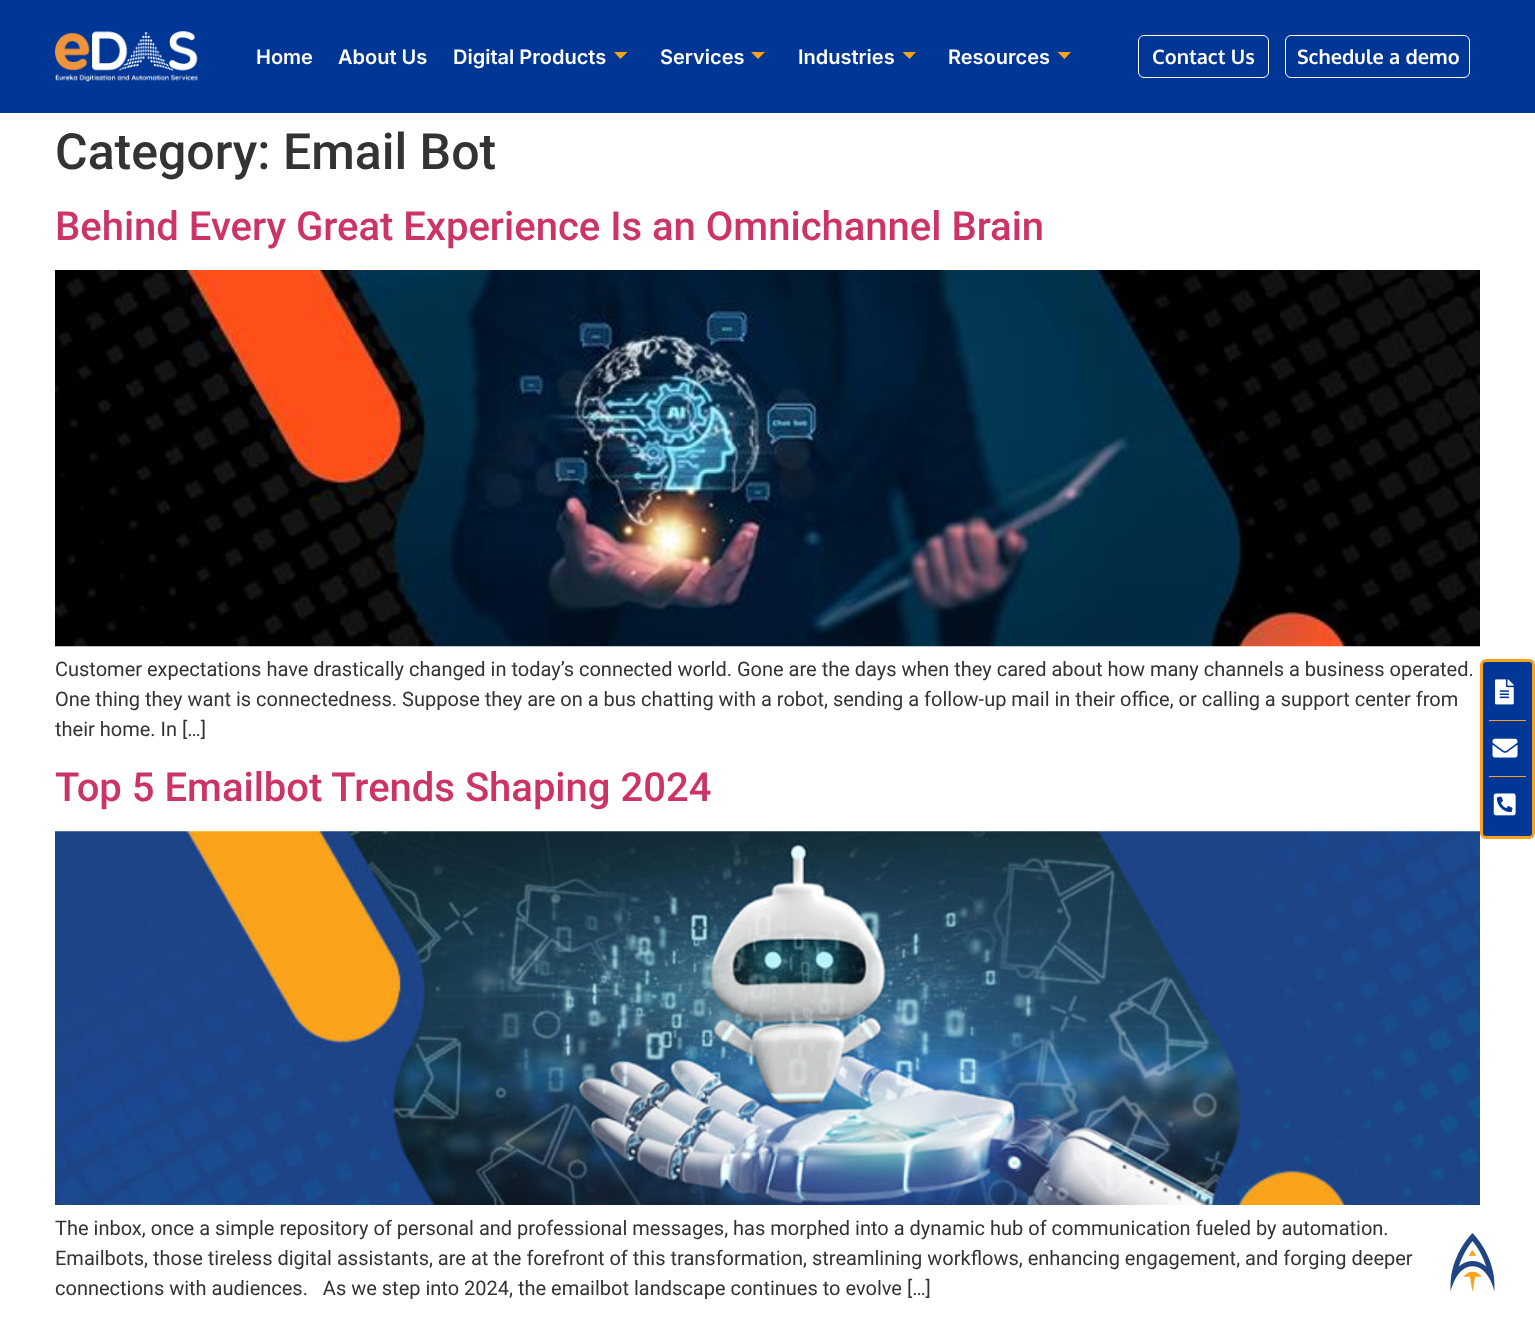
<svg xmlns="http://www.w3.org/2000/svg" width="1535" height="1317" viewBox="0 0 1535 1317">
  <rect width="100%" height="100%" fill="#fff"/>
  <path d="M0 0h1535v113H0z" fill="#003796"/>
  <image x="55" y="31" width="143" height="51" href="img/1.png"/>
  <path d="M614 52H627.5L620.5 59Z" fill="#f9a21e"/>
  <path d="M751 52H765L758 59Z" fill="#f9a21e"/>
  <path d="M902.5 52H916L909.5 59Z" fill="#f9a21e"/>
  <path d="M1057.5 52H1071L1064.5 59Z" fill="#f9a21e"/>
  <rect x="1138.5" y="35.5" width="130" height="42" rx="5.5" fill="none" stroke="#fff"/>
  <rect x="1285.5" y="35.5" width="184" height="42" rx="5.5" fill="none" stroke="#fff"/>
  <image x="55" y="270" width="1425" height="377" href="img/2.png"/>
  <image x="55" y="831" width="1425" height="374" href="img/3.png"/>
  <rect x="1481.5" y="660.5" width="52" height="177" rx="4.5" fill="#003796" stroke="#f9a21e" stroke-width="3"/>
  <image x="1495" y="679" width="19" height="26" href="img/4.png"/>
  <path d="M1489 720h37v1H1489z" fill="#f9a21e"/>
  <image x="1492" y="738" width="26" height="20" href="img/5.png"/>
  <path d="M1489 776h37v1H1489z" fill="#f9a21e"/>
  <image x="1493" y="793" width="23" height="23" href="img/6.png"/>
  <image x="1450" y="1233" width="45" height="59" href="img/7.png"/>
  <g font-family="Inter" font-size="20" font-weight="600" fill="#fff">
    <text x="256" y="64">Home</text>
    <text x="338" y="64">About Us</text>
    <text x="453" y="64">Digital Products</text>
    <text x="660" y="64">Services</text>
    <text x="798" y="64">Industries</text>
    <text x="948" y="64">Resources</text>
  </g>
  <g font-family="Oxygen" font-size="20" font-weight="bold" fill="#fff">
    <text x="1152" y="64">Contact Us</text>
    <text x="1297" y="64">Schedule a demo</text>
  </g>
  <text x="55" y="169" font-family="Roboto" font-size="50" font-weight="500" fill="#333">Category: Email Bot</text>
  <text x="55" y="240" font-family="Roboto" font-size="40" font-weight="500" fill="#c36">Behind Every Great Experience Is an Omnichannel Brain</text>
  <g font-family="Roboto" font-size="20" fill="#333">
    <text x="55" y="676">Customer expectations have drastically changed in today’s connected world. Gone are the days when they cared about how many channels a business operated.</text>
    <text x="55" y="706">One thing they want is connectedness. Suppose they are on a bus chatting with a robot, sending a follow-up mail in their office, or calling a support center from</text>
    <text x="55" y="736">their home. In […]</text>
  </g>
  <text x="55" y="801" font-family="Roboto" font-size="40" font-weight="500" fill="#c36">Top 5 Emailbot Trends Shaping 2024</text>
  <g font-family="Roboto" font-size="20" fill="#333">
    <text x="55" y="1235">The inbox, once a simple repository of personal and professional messages, has morphed into a dynamic hub of communication fueled by automation.</text>
    <text x="55" y="1265">Emailbots, those tireless digital assistants, are at the forefront of this transformation, streamlining workflows, enhancing engagement, and forging deeper</text>
    <text x="55" y="1295" xml:space="preserve">connections with audiences.   As we step into 2024, the emailbot landscape continues to evolve […]</text>
  </g>
</svg>
